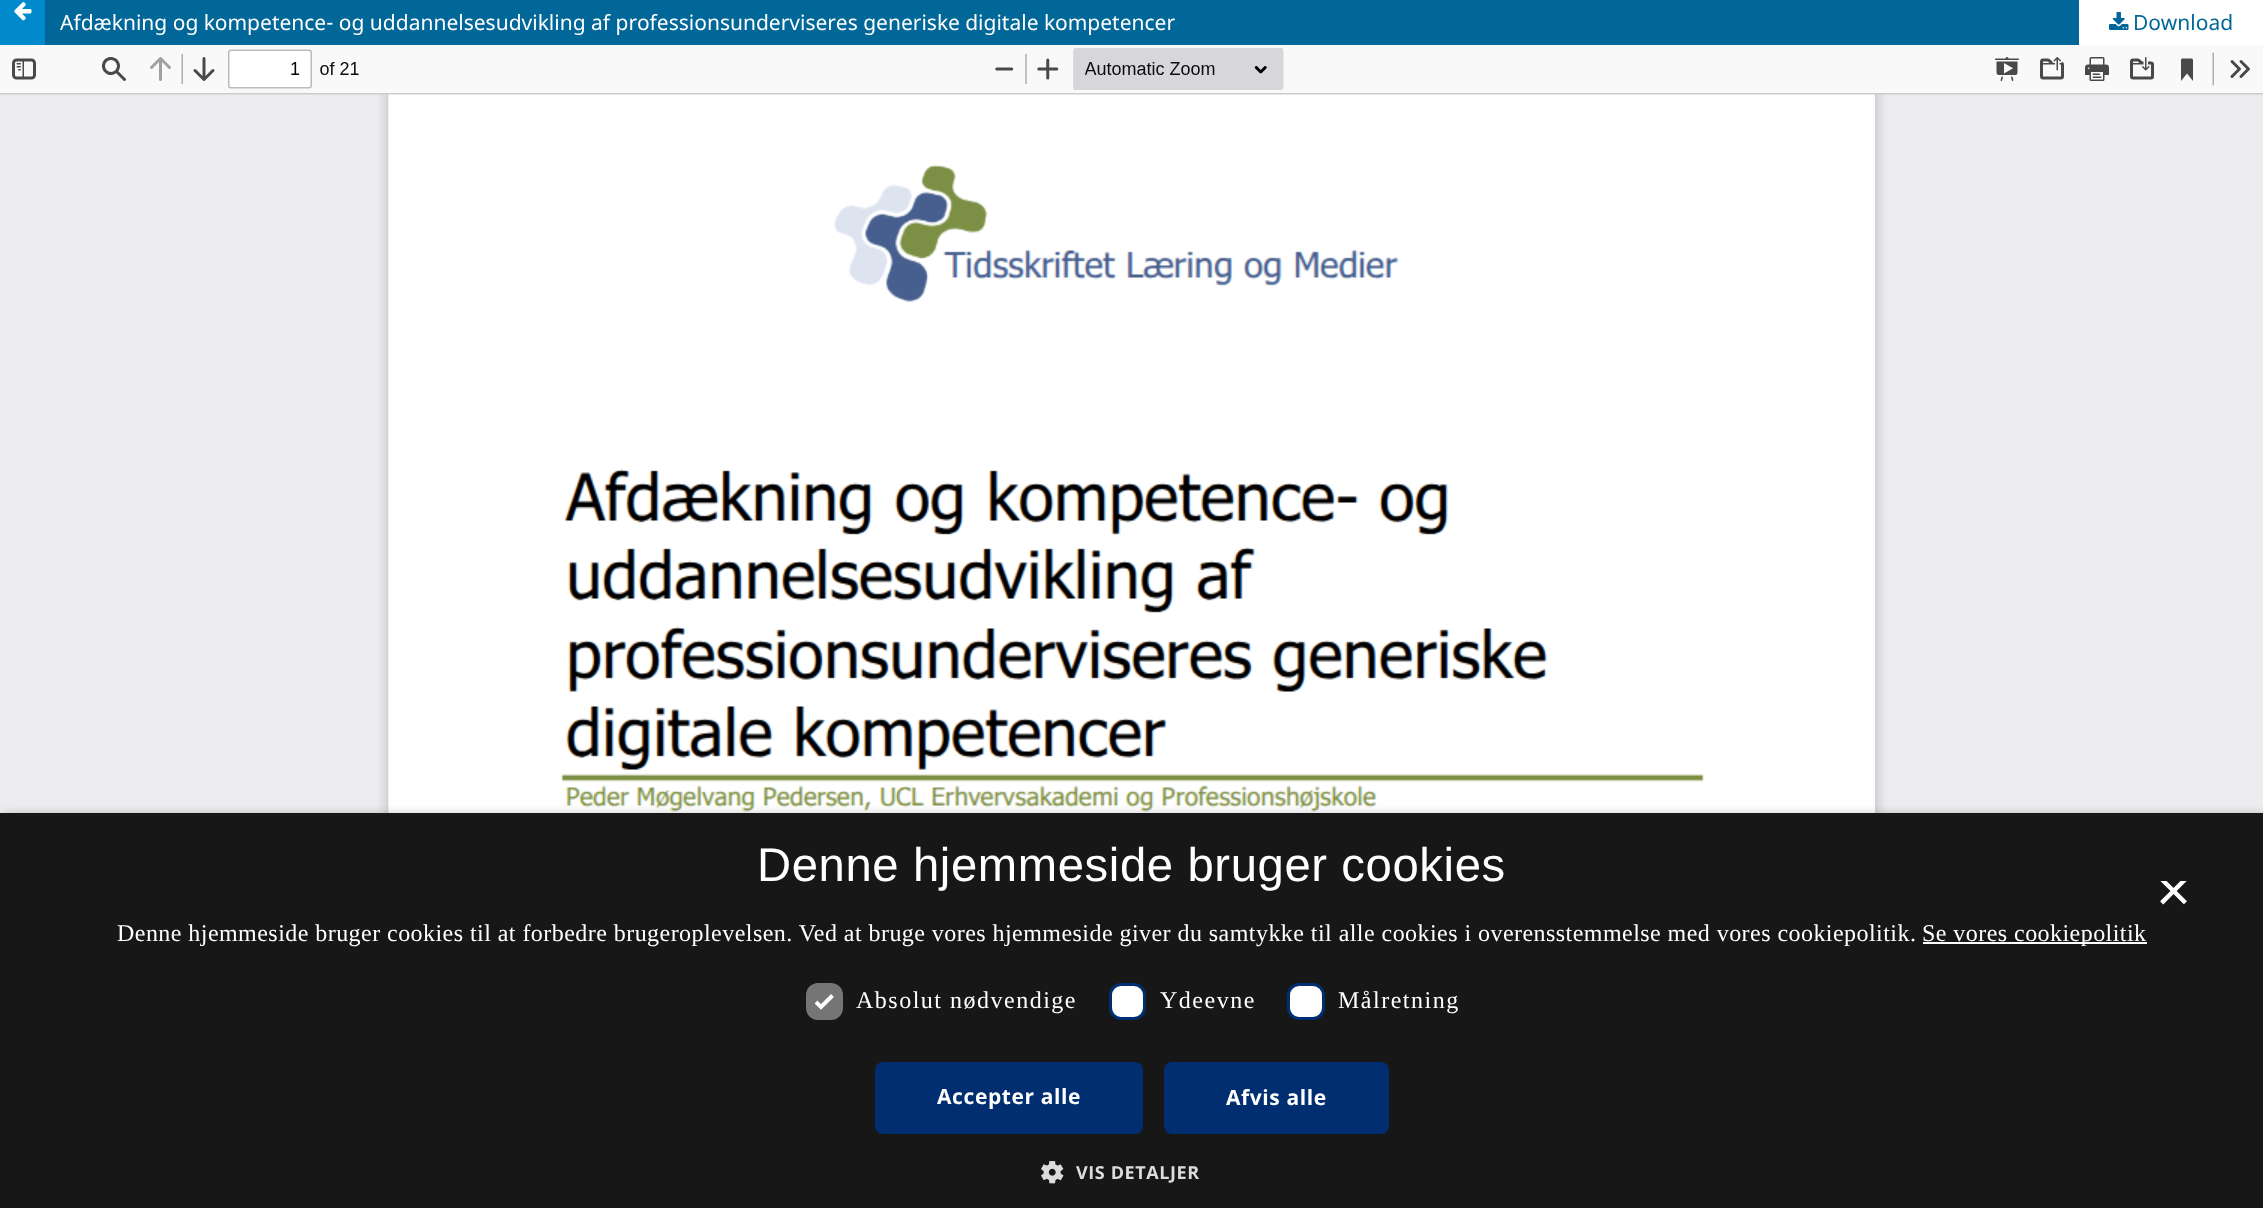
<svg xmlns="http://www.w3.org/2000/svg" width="2263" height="1208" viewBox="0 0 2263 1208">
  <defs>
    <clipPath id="clip1"><path d="M2151 881h45v45H2151z"/></clipPath>
  </defs>
  <rect width="100%" height="100%" fill="#fff"/>
  <path d="M45 0h2034v45H45z" fill="#006798"/>
  <path d="M0 0h45v45H0z" fill="#008acb"/>
  <image x="14" y="2" width="18" height="19" href="img/1.png"/>
  <image x="2109" y="12" width="20" height="18" href="img/2.png"/>
  <image x="0" y="45" width="2263" height="768" href="img/3.png"/>
  <path d="M2 816h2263v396H2z" fill="#00000059" filter="blur(6px)"/>
  <path d="M0 813h2263v395H0z" fill="#171717"/>
  <path d="M1923 942h224v2H1923z" fill="#fff"/>
  <rect x="806" y="983" width="37" height="37" rx="12" fill="#757575"/>
  <path d="M816 1002L821 1007L832.5 995.5" fill="none" stroke="#fff" stroke-width="3.9"/>
  <rect x="1110.5" y="984.5" width="34" height="34" rx="10.5" fill="#fff" stroke="#002e70" stroke-width="3"/>
  <rect x="1288.5" y="984.5" width="35" height="34" rx="10.5" fill="#fff" stroke="#002e70" stroke-width="3"/>
  <rect x="876" y="1063" width="266" height="70" rx="7" fill="#002e70" stroke="#002e70" stroke-width="2"/>
  <rect x="1165" y="1063" width="223" height="70" rx="7" fill="#002e70" stroke="#002e70" stroke-width="2"/>
  <image x="1041" y="1161" width="23" height="23" href="img/4.png"/>
  <text x="60" y="30" font-family="Noto Sans" font-size="21" fill="#fff">Afdækning og kompetence- og uddannelsesudvikling af professionsunderviseres generiske digitale kompetencer</text>
  <text x="2133" y="30" font-family="Noto Sans" font-size="21" fill="#006798">Download</text>
  <text x="757" y="881" font-family="Liberation Sans" font-size="47.25" letter-spacing="0.6" fill="#fff">Denne hjemmeside bruger cookies</text>
  <g clip-path="url(#clip1)">
    <text x="2156" y="911" font-family="Liberation Sans" font-size="60" fill="#fff">×</text>
  </g>
  <g font-family="Liberation Serif" font-size="24" letter-spacing="0.45" fill="#fff">
    <text x="117" y="941">Denne hjemmeside bruger cookies til at forbedre brugeroplevelsen. Ved at bruge vores hjemmeside giver du samtykke til alle cookies i overensstemmelse med vores cookiepolitik.</text>
    <text x="1922" y="941">Se vores cookiepolitik</text>
  </g>
  <g font-family="Liberation Serif" font-size="24" letter-spacing="1.5" fill="#fff">
    <text x="856" y="1008">Absolut nødvendige</text>
    <text x="1160" y="1008">Ydeevne</text>
    <text x="1338" y="1008">Målretning</text>
  </g>
  <g font-family="Open Sans" font-size="21" font-weight="bold" letter-spacing="0.6" fill="#fff">
    <text x="937" y="1104">Accepter alle</text>
    <text x="1226" y="1105">Afvis alle</text>
  </g>
  <text x="1076" y="1179" font-family="Open Sans" font-size="18" font-weight="bold" letter-spacing="0.6" fill="#dcdcdc">VIS DETALJER</text>
</svg>
